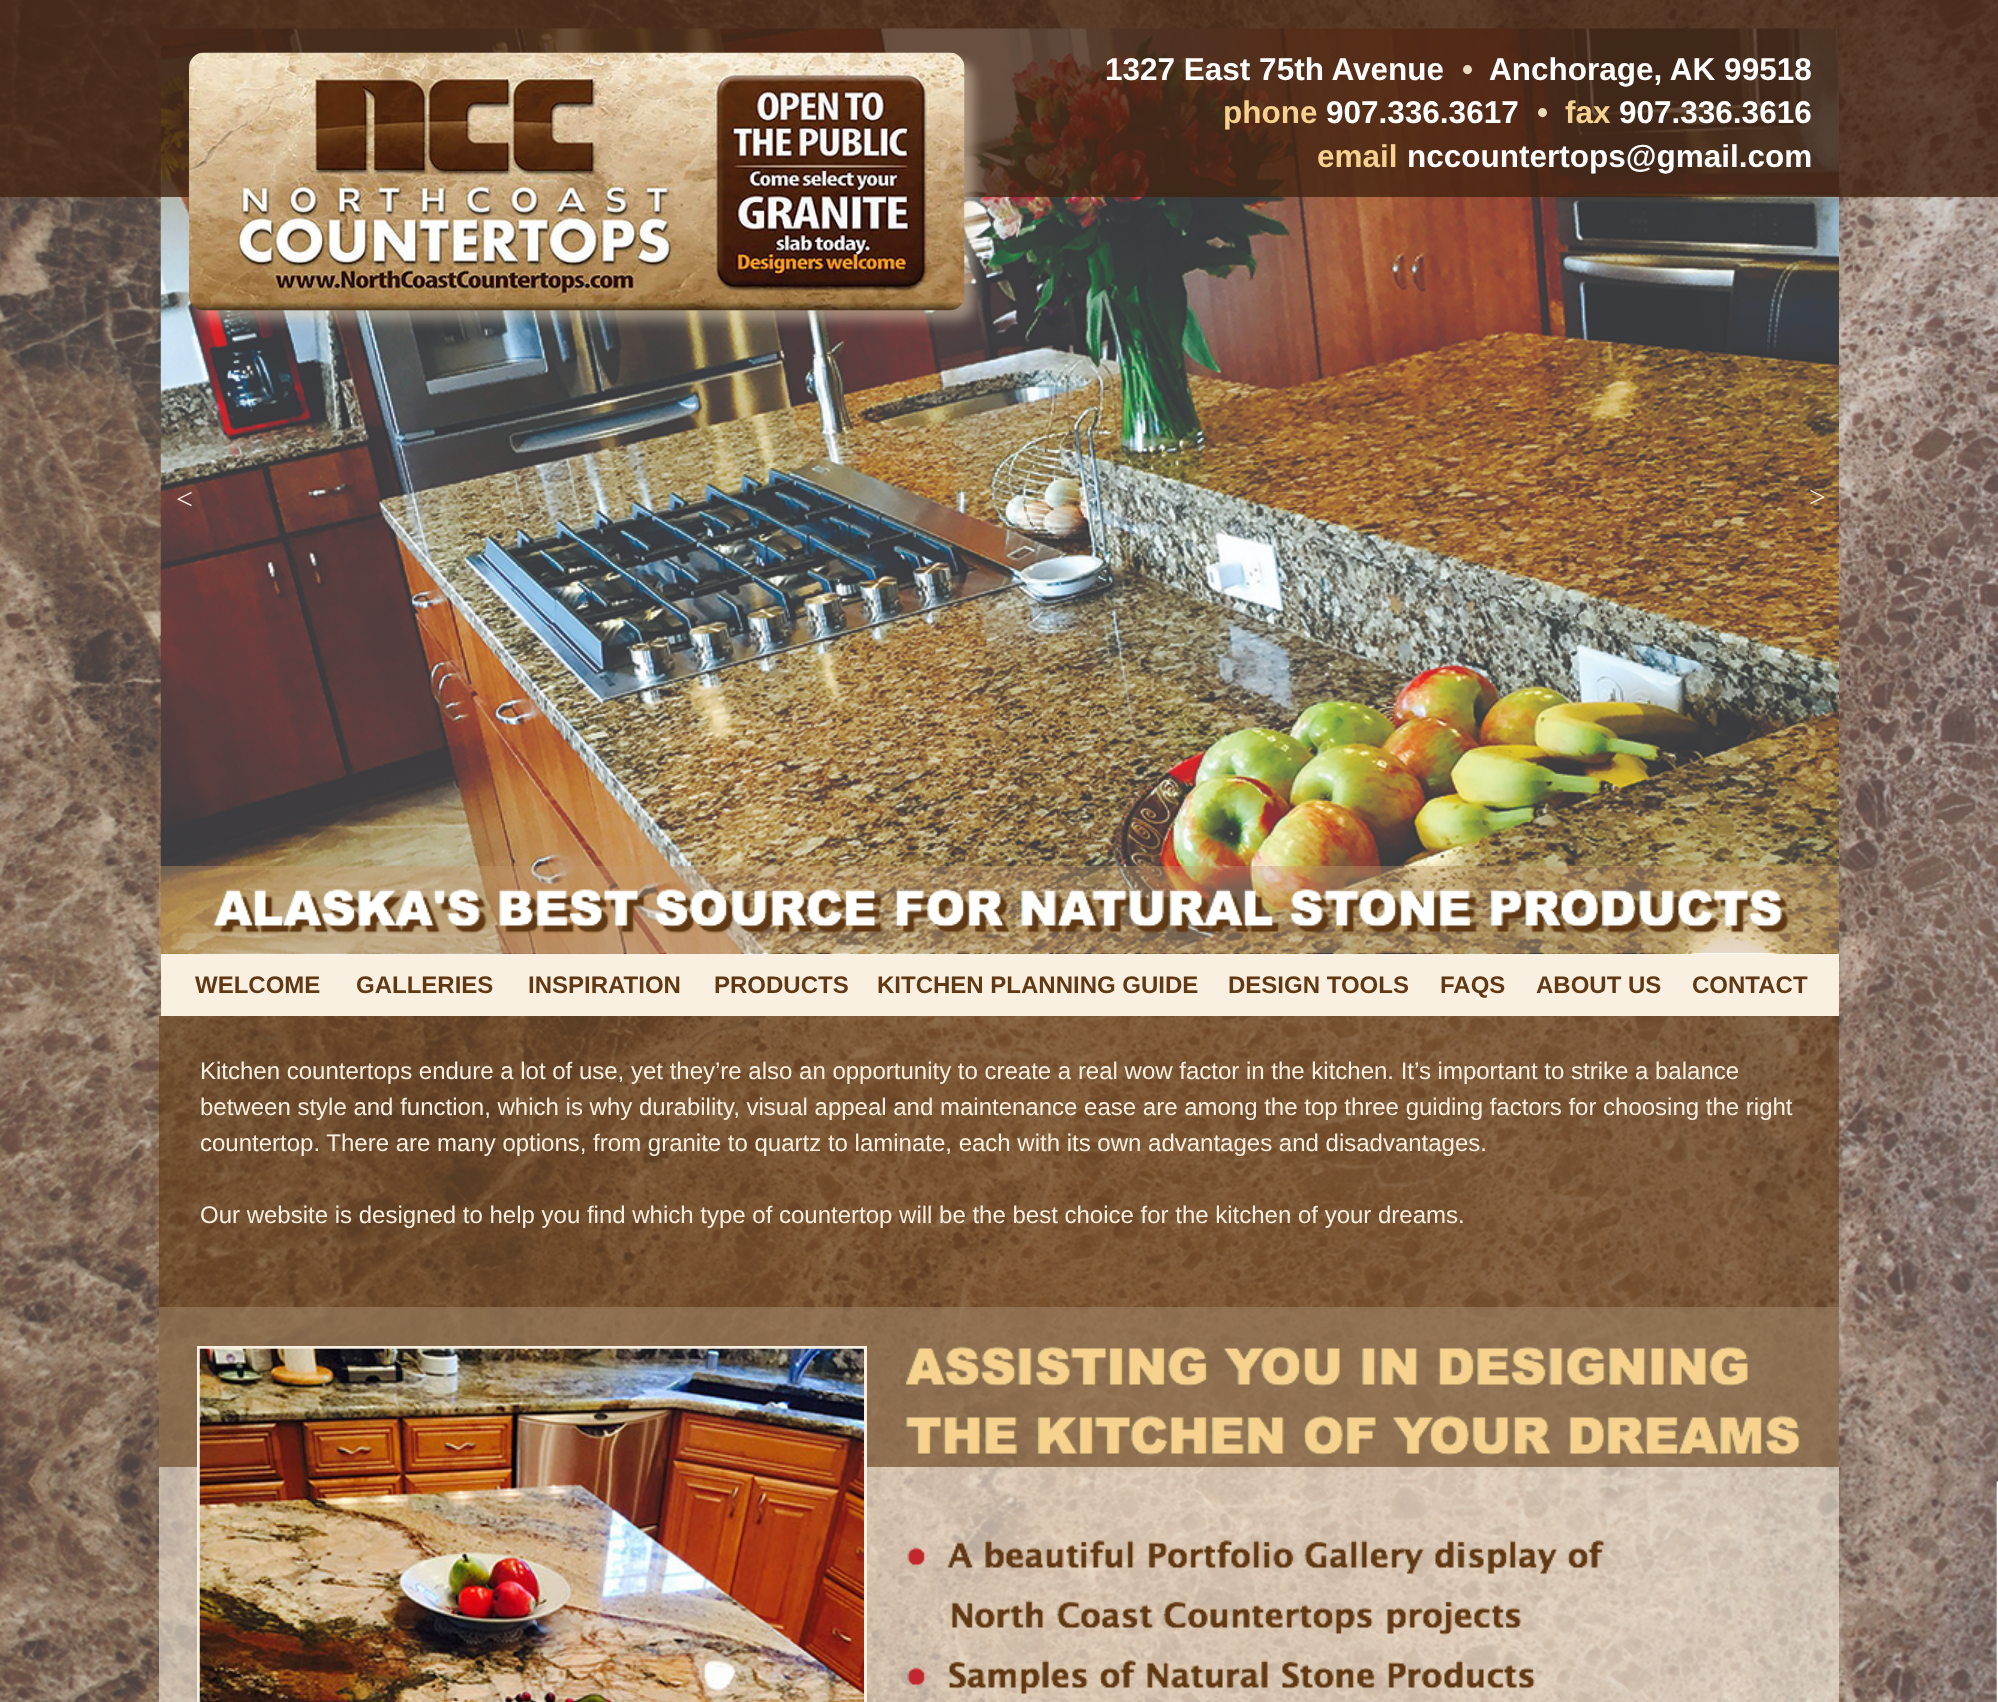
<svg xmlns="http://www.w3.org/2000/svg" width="1998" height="1702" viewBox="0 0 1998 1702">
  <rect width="100%" height="100%" fill="#fff"/>
  <image x="0" y="0" width="1998" height="1702" href="img/1.png"/>
  <image x="160" y="28" width="1679" height="926" href="img/3.png"/>
  <path d="M0 0h1998v197H0z" fill="#422310cc"/>
  <rect x="198" y="62" width="776" height="258" rx="15" fill="#ebdabb80" filter="blur(6px)"/>
  <image x="189" y="52" width="776" height="259" href="img/2.png"/>
  <path d="M159 866h1680v87H159z" fill="#c69c6d66"/>
  <image x="214" y="889" width="1576" height="45" href="img/4.png"/>
  <path d="M161 954h1678v62H161z" fill="#f9f0e1"/>
  <path d="M159 1307h1680v395H159z" fill="#f9f0e199"/>
  <path d="M159 1016h1680v451H159z" fill="#60381399"/>
  <path d="M198.5 1347.5h667v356H198.5z" fill="none" stroke="#f9f0e1" stroke-width="3"/>
  <image x="199" y="1348" width="665" height="354" href="img/5.png"/>
  <image x="905" y="1346" width="895" height="349" href="img/6.png"/>
  <text x="1105" y="80" font-family="Liberation Sans" font-size="31.5" font-weight="bold" fill="#fff">1327 East 75th Avenue</text>
  <text x="1462" y="80" font-family="Liberation Sans" font-size="31.5" font-weight="bold" fill="#ebdabb">•</text>
  <text x="1489" y="80" font-family="Liberation Sans" font-size="31.5" font-weight="bold" fill="#fff">Anchorage, AK 99518</text>
  <text x="1223" y="123" font-family="Liberation Sans" font-size="31.5" font-weight="bold" fill="#f6d28e">phone</text>
  <text x="1326" y="123" font-family="Liberation Sans" font-size="31.5" font-weight="bold" fill="#fff">907.336.3617</text>
  <text x="1537" y="123" font-family="Liberation Sans" font-size="31.5" font-weight="bold" fill="#ebdabb">•</text>
  <text x="1565" y="123" font-family="Liberation Sans" font-size="31.5" font-weight="bold" fill="#f6d28e">fax</text>
  <text x="1619" y="123" font-family="Liberation Sans" font-size="31.5" font-weight="bold" fill="#fff">907.336.3616</text>
  <text x="1317" y="167" font-family="Liberation Sans" font-size="31.5" font-weight="bold" fill="#f6d28e">email</text>
  <text x="1407" y="167" font-family="Liberation Sans" font-size="31.5" font-weight="bold" fill="#fff">nccountertops@gmail.com</text>
  <g font-family="Liberation Serif" font-size="30" fill="#f9f0e1">
    <text x="176" y="509">&lt;</text>
    <text x="1809" y="507">&gt;</text>
  </g>
  <g font-family="Liberation Sans" font-size="24" font-weight="bold" fill="#603813">
    <text x="195" y="993">WELCOME</text>
    <text x="356" y="993">GALLERIES</text>
    <text x="528" y="993">INSPIRATION</text>
    <text x="714" y="993">PRODUCTS</text>
    <text x="877" y="993">KITCHEN PLANNING GUIDE</text>
    <text x="1228" y="993">DESIGN TOOLS</text>
    <text x="1440" y="993">FAQS</text>
    <text x="1536" y="993">ABOUT US</text>
    <text x="1692" y="993">CONTACT</text>
  </g>
  <g font-family="Liberation Sans" font-size="24" fill="#f9f0e1">
    <text x="200" y="1079">Kitchen countertops endure a lot of use, yet they’re also an opportunity to create a real wow factor in the kitchen. It’s important to strike a balance</text>
    <text x="200" y="1115">between style and function, which is why durability, visual appeal and maintenance ease are among the top three guiding factors for choosing the right</text>
    <text x="200" y="1151">countertop. There are many options, from granite to quartz to laminate, each with its own advantages and disadvantages.</text>
    <text x="200" y="1223">Our website is designed to help you find which type of countertop will be the best choice for the kitchen of your dreams.</text>
  </g>
</svg>
